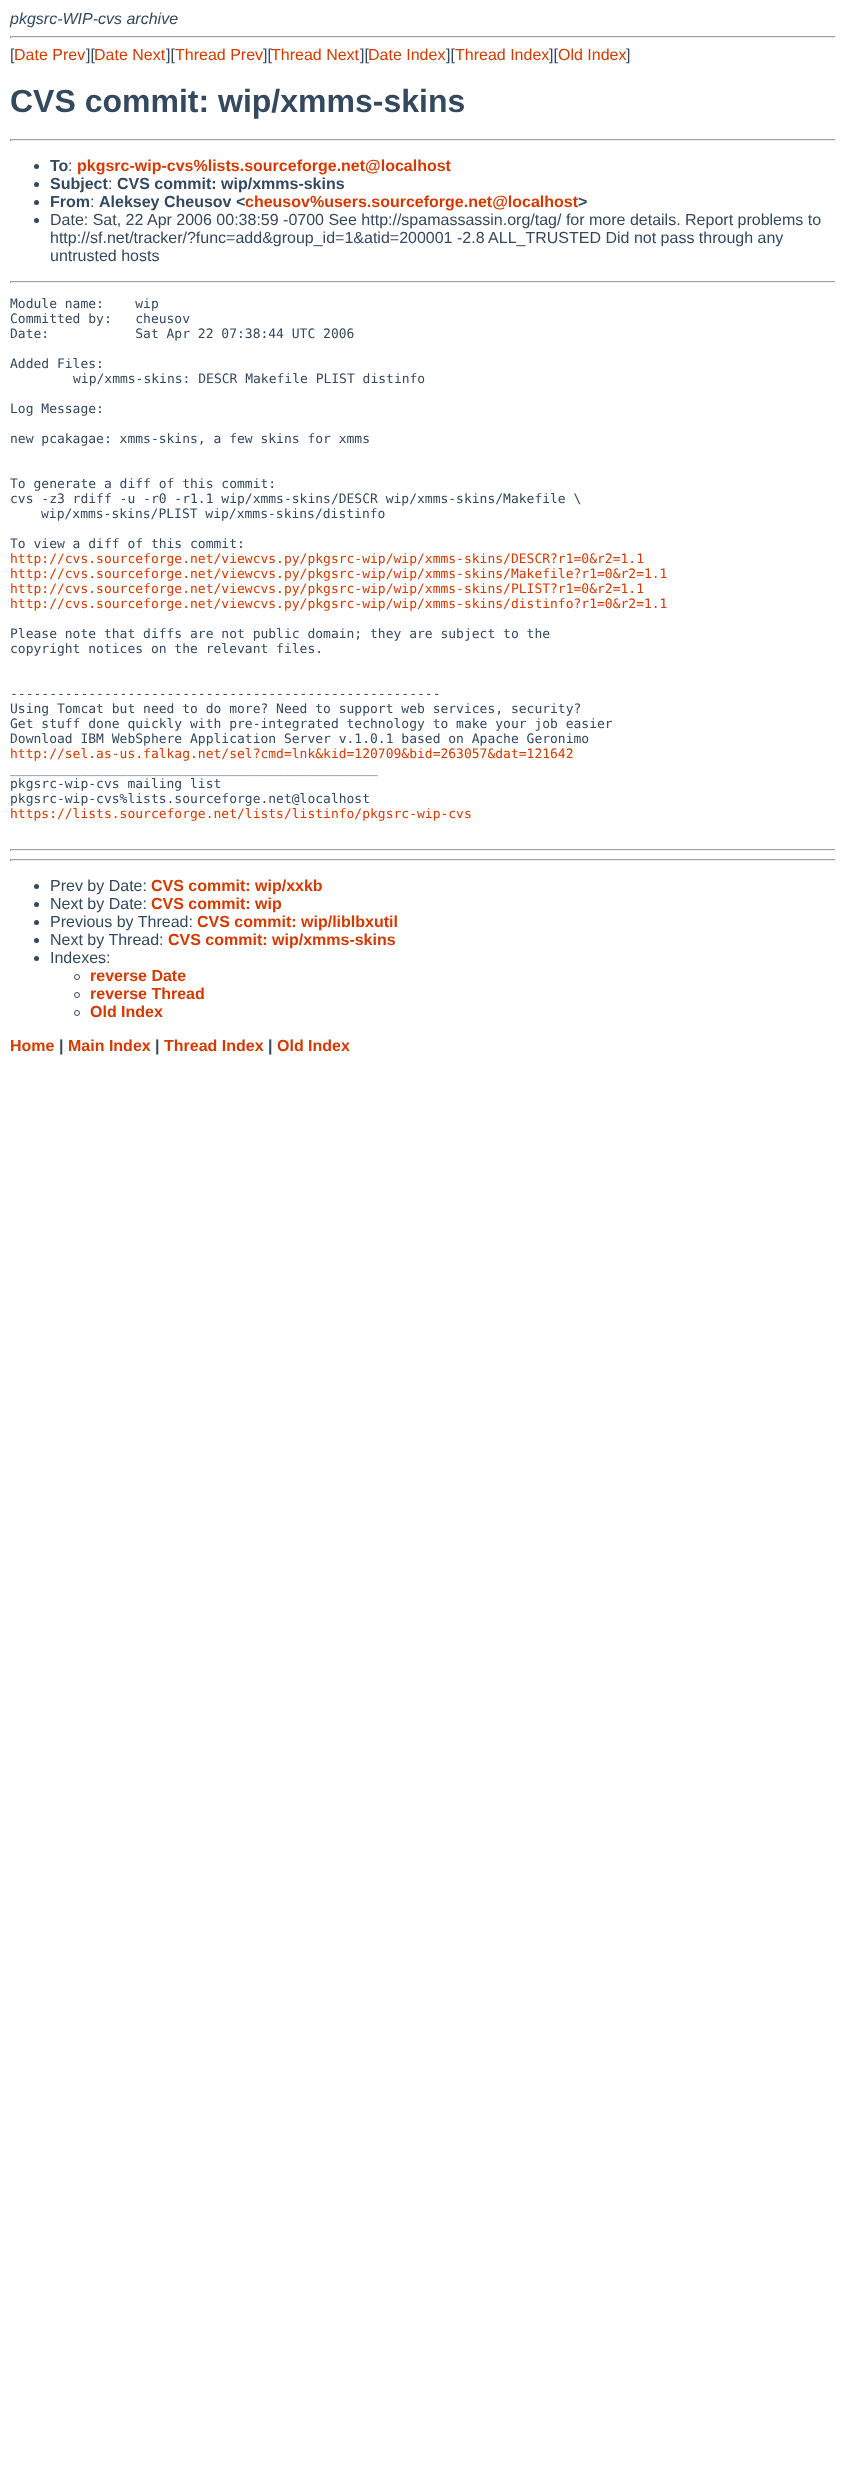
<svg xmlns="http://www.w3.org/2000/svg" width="846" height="2469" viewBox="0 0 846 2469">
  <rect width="100%" height="100%" fill="#fff"/>
  <path d="M10 36h826v1H10z" fill="#9f9f9f"/>
  <path d="M835 36h1v2H835z" fill="#eee"/>
  <path d="M10 37h826v1H10z" fill="#eee"/>
  <path d="M10 36h1v2H10z" fill="#9f9f9f"/>
  <path d="M10 139h826v1H10z" fill="#9f9f9f"/>
  <path d="M835 139h1v2H835z" fill="#eee"/>
  <path d="M10 140h826v1H10z" fill="#eee"/>
  <path d="M10 139h1v2H10z" fill="#9f9f9f"/>
  <circle cx="36.5" cy="166.5" r="2.5" fill="#34495e"/>
  <circle cx="36.5" cy="184.5" r="2.5" fill="#34495e"/>
  <circle cx="36.5" cy="202.5" r="2.5" fill="#34495e"/>
  <circle cx="36.5" cy="220.5" r="2.5" fill="#34495e"/>
  <path d="M10 281h826v1H10z" fill="#9f9f9f"/>
  <path d="M835 281h1v2H835z" fill="#eee"/>
  <path d="M10 282h826v1H10z" fill="#eee"/>
  <path d="M10 281h1v2H10z" fill="#9f9f9f"/>
  <path d="M10 849h826v1H10z" fill="#9f9f9f"/>
  <path d="M835 849h1v2H835z" fill="#eee"/>
  <path d="M10 850h826v1H10z" fill="#eee"/>
  <path d="M10 849h1v2H10z" fill="#9f9f9f"/>
  <path d="M10 859h826v1H10z" fill="#9f9f9f"/>
  <path d="M835 859h1v2H835z" fill="#eee"/>
  <path d="M10 860h826v1H10z" fill="#eee"/>
  <path d="M10 859h1v2H10z" fill="#9f9f9f"/>
  <circle cx="36.5" cy="886.5" r="2.5" fill="#34495e"/>
  <circle cx="36.5" cy="904.5" r="2.5" fill="#34495e"/>
  <circle cx="36.5" cy="922.5" r="2.5" fill="#34495e"/>
  <circle cx="36.5" cy="940.5" r="2.5" fill="#34495e"/>
  <circle cx="36.5" cy="958.5" r="2.5" fill="#34495e"/>
  <circle cx="77" cy="977" r="2.5" fill="none" stroke="#34495e"/>
  <circle cx="77" cy="995" r="2.5" fill="none" stroke="#34495e"/>
  <circle cx="77" cy="1013" r="2.5" fill="none" stroke="#34495e"/>
  <text x="10" y="24" font-family="Liberation Sans" font-size="16" font-style="italic" fill="#34495e">pkgsrc-WIP-cvs archive</text>
  <text x="10" y="60" font-family="Liberation Sans" font-size="16" fill="#34495e">[</text>
  <text x="14" y="60" font-family="Liberation Sans" font-size="16" fill="#d43900">Date Prev</text>
  <text x="86" y="60" font-family="Liberation Sans" font-size="16" fill="#34495e">][</text>
  <text x="94" y="60" font-family="Liberation Sans" font-size="16" fill="#d43900">Date Next</text>
  <text x="166" y="60" font-family="Liberation Sans" font-size="16" fill="#34495e">][</text>
  <text x="175" y="60" font-family="Liberation Sans" font-size="16" fill="#d43900">Thread Prev</text>
  <text x="263" y="60" font-family="Liberation Sans" font-size="16" fill="#34495e">][</text>
  <text x="271" y="60" font-family="Liberation Sans" font-size="16" fill="#d43900">Thread Next</text>
  <text x="360" y="60" font-family="Liberation Sans" font-size="16" fill="#34495e">][</text>
  <text x="368" y="60" font-family="Liberation Sans" font-size="16" fill="#d43900">Date Index</text>
  <text x="446" y="60" font-family="Liberation Sans" font-size="16" fill="#34495e">][</text>
  <text x="455" y="60" font-family="Liberation Sans" font-size="16" fill="#d43900">Thread Index</text>
  <text x="549" y="60" font-family="Liberation Sans" font-size="16" fill="#34495e">][</text>
  <text x="558" y="60" font-family="Liberation Sans" font-size="16" fill="#d43900">Old Index</text>
  <text x="626" y="60" font-family="Liberation Sans" font-size="16" fill="#34495e">]</text>
  <text x="10" y="112" font-family="Liberation Sans" font-size="32" font-weight="bold" fill="#34495e">CVS commit: wip/xmms-skins</text>
  <text x="50" y="171" font-family="Liberation Sans" font-size="16" font-weight="bold" fill="#34495e">To</text>
  <text x="68" y="171" font-family="Liberation Sans" font-size="16" fill="#34495e">:</text>
  <text x="77" y="171" font-family="Liberation Sans" font-size="16" font-weight="bold" fill="#d43900">pkgsrc-wip-cvs%lists.sourceforge.net@localhost</text>
  <text x="50" y="189" font-family="Liberation Sans" font-size="16" font-weight="bold" fill="#34495e">Subject</text>
  <text x="108" y="189" font-family="Liberation Sans" font-size="16" fill="#34495e">:</text>
  <g font-family="Liberation Sans" font-size="16" font-weight="bold" fill="#34495e">
    <text x="117" y="189">CVS commit: wip/xmms-skins</text>
    <text x="50" y="207">From</text>
  </g>
  <text x="90" y="207" font-family="Liberation Sans" font-size="16" fill="#34495e">:</text>
  <text x="99" y="207" font-family="Liberation Sans" font-size="16" font-weight="bold" fill="#34495e">Aleksey Cheusov &lt;</text>
  <text x="245" y="207" font-family="Liberation Sans" font-size="16" font-weight="bold" fill="#d43900">cheusov%users.sourceforge.net@localhost</text>
  <text x="578" y="207" font-family="Liberation Sans" font-size="16" font-weight="bold" fill="#34495e">&gt;</text>
  <g font-family="Liberation Sans" font-size="16" fill="#34495e">
    <text x="50" y="225">Date: Sat, 22 Apr 2006 00:38:59 -0700 See http://spamassassin.org/tag/ for more details. Report problems to</text>
    <text x="50" y="243">http://sf.net/tracker/?func=add&amp;group_id=1&amp;atid=200001 -2.8 ALL_TRUSTED Did not pass through any</text>
    <text x="50" y="261">untrusted hosts</text>
  </g>
  <g font-family="DejaVu Sans Mono" font-size="13" fill="#34495e">
    <text x="10" y="308" xml:space="preserve">Module name:    wip</text>
    <text x="10" y="323" xml:space="preserve">Committed by:   cheusov</text>
    <text x="10" y="338" xml:space="preserve">Date:           Sat Apr 22 07:38:44 UTC 2006</text>
    <text x="10" y="368">Added Files:</text>
    <text x="73" y="383">wip/xmms-skins: DESCR Makefile PLIST distinfo</text>
    <text x="10" y="413">Log Message:</text>
    <text x="10" y="443">new pcakagae: xmms-skins, a few skins for xmms</text>
    <text x="10" y="488">To generate a diff of this commit:</text>
    <text x="10" y="503">cvs -z3 rdiff -u -r0 -r1.1 wip/xmms-skins/DESCR wip/xmms-skins/Makefile \</text>
    <text x="41" y="518">wip/xmms-skins/PLIST wip/xmms-skins/distinfo</text>
    <text x="10" y="548">To view a diff of this commit:</text>
  </g>
  <g font-family="DejaVu Sans Mono" font-size="13" fill="#d43900">
    <text x="10" y="563">http://cvs.sourceforge.net/viewcvs.py/pkgsrc-wip/wip/xmms-skins/DESCR?r1=0&amp;r2=1.1</text>
    <text x="10" y="578">http://cvs.sourceforge.net/viewcvs.py/pkgsrc-wip/wip/xmms-skins/Makefile?r1=0&amp;r2=1.1</text>
    <text x="10" y="593">http://cvs.sourceforge.net/viewcvs.py/pkgsrc-wip/wip/xmms-skins/PLIST?r1=0&amp;r2=1.1</text>
    <text x="10" y="608">http://cvs.sourceforge.net/viewcvs.py/pkgsrc-wip/wip/xmms-skins/distinfo?r1=0&amp;r2=1.1</text>
  </g>
  <g font-family="DejaVu Sans Mono" font-size="13" fill="#34495e">
    <text x="10" y="638">Please note that diffs are not public domain; they are subject to the</text>
    <text x="10" y="653">copyright notices on the relevant files.</text>
    <text x="10" y="698">-------------------------------------------------------</text>
    <text x="10" y="713">Using Tomcat but need to do more? Need to support web services, security?</text>
    <text x="10" y="728">Get stuff done quickly with pre-integrated technology to make your job easier</text>
    <text x="10" y="743">Download IBM WebSphere Application Server v.1.0.1 based on Apache Geronimo</text>
  </g>
  <text x="10" y="758" font-family="DejaVu Sans Mono" font-size="13" fill="#d43900">http://sel.as-us.falkag.net/sel?cmd=lnk&amp;kid=120709&amp;bid=263057&amp;dat=121642</text>
  <g font-family="DejaVu Sans Mono" font-size="13" fill="#34495e">
    <text x="10" y="773">_______________________________________________</text>
    <text x="10" y="788">pkgsrc-wip-cvs mailing list</text>
    <text x="10" y="803">pkgsrc-wip-cvs%lists.sourceforge.net@localhost</text>
  </g>
  <text x="10" y="818" font-family="DejaVu Sans Mono" font-size="13" fill="#d43900">https://lists.sourceforge.net/lists/listinfo/pkgsrc-wip-cvs</text>
  <text x="50" y="891" font-family="Liberation Sans" font-size="16" fill="#34495e">Prev by Date:</text>
  <text x="151" y="891" font-family="Liberation Sans" font-size="16" font-weight="bold" fill="#d43900">CVS commit: wip/xxkb</text>
  <text x="50" y="909" font-family="Liberation Sans" font-size="16" fill="#34495e">Next by Date:</text>
  <text x="151" y="909" font-family="Liberation Sans" font-size="16" font-weight="bold" fill="#d43900">CVS commit: wip</text>
  <text x="50" y="927" font-family="Liberation Sans" font-size="16" fill="#34495e">Previous by Thread:</text>
  <text x="197" y="927" font-family="Liberation Sans" font-size="16" font-weight="bold" fill="#d43900">CVS commit: wip/liblbxutil</text>
  <text x="50" y="945" font-family="Liberation Sans" font-size="16" fill="#34495e">Next by Thread:</text>
  <text x="168" y="945" font-family="Liberation Sans" font-size="16" font-weight="bold" fill="#d43900">CVS commit: wip/xmms-skins</text>
  <text x="50" y="963" font-family="Liberation Sans" font-size="16" fill="#34495e">Indexes:</text>
  <g font-family="Liberation Sans" font-size="16" font-weight="bold" fill="#d43900">
    <text x="90" y="981">reverse Date</text>
    <text x="90" y="999">reverse Thread</text>
    <text x="90" y="1017">Old Index</text>
    <text x="10" y="1051">Home</text>
  </g>
  <text x="59" y="1051" font-family="Liberation Sans" font-size="16" font-weight="bold" fill="#34495e">|</text>
  <text x="68" y="1051" font-family="Liberation Sans" font-size="16" font-weight="bold" fill="#d43900">Main Index</text>
  <text x="155" y="1051" font-family="Liberation Sans" font-size="16" font-weight="bold" fill="#34495e">|</text>
  <text x="164" y="1051" font-family="Liberation Sans" font-size="16" font-weight="bold" fill="#d43900">Thread Index</text>
  <text x="268" y="1051" font-family="Liberation Sans" font-size="16" font-weight="bold" fill="#34495e">|</text>
  <text x="277" y="1051" font-family="Liberation Sans" font-size="16" font-weight="bold" fill="#d43900">Old Index</text>
</svg>
